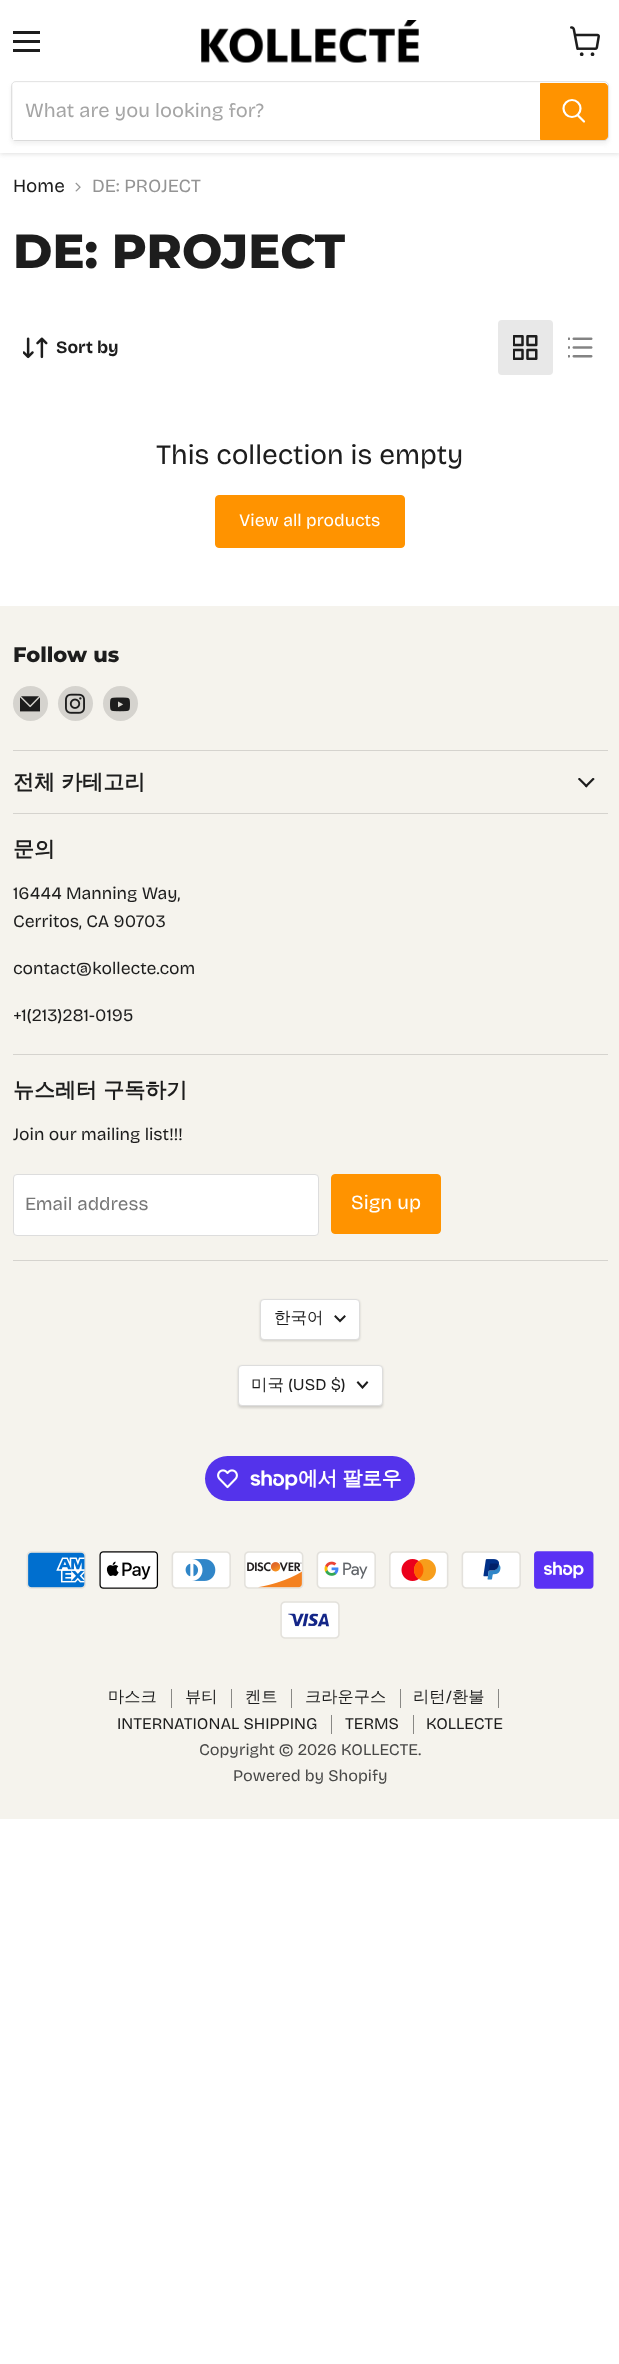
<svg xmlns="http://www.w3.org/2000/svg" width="619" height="2364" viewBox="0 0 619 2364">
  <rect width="100%" height="100%" fill="#fff"/>
  <path d="M0 1h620v153H0z" fill="#80808040" filter="blur(2.5px)"/>
  <path d="M0 0h619v153H0z" fill="#fff"/>
  <path d="M13 31h27v3H13z" fill="#1d1d1d"/>
  <path d="M13 40h27v3H13z" fill="#1d1d1d"/>
  <path d="M13 49h27v3H13z" fill="#1d1d1d"/>
  <image x="570" y="26" width="30" height="30" href="img/1.png"/>
  <image x="201" y="20" width="218" height="43" href="img/2.png"/>
  <rect x="11" y="84" width="598" height="60" rx="5" fill="#8080801c" filter="blur(2px)"/>
  <rect x="11.5" y="81.5" width="597" height="59" rx="4.5" fill="none" stroke="#80808033"/>
  <path d="M13 83h527v57H13z" fill="#fff"/>
  <path d="M540.5 83.5H604C606 83.5 607.5 85 607.5 87V136C607.5 138 606 139.5 604 139.5H540.5Z" fill="#ff9300" stroke="#ff9300"/>
  <path d="M584 121.5L578 115.5" fill="none" stroke="#fff" stroke-width="2.2" stroke-linecap="round"/>
  <circle cx="572" cy="108.5" r="8.5" fill="none" stroke="#fff" stroke-width="2.2"/>
  <image x="75" y="182" width="6" height="10" href="img/3.png"/>
  <image x="23" y="337" width="25" height="22" href="img/4.png"/>
  <rect x="498" y="320" width="55" height="55" rx="4" fill="#e8e8e8"/>
  <image x="513" y="335" width="25" height="25" href="img/5.png"/>
  <image x="568" y="337" width="25" height="21" href="img/6.png"/>
  <rect x="215.5" y="495.5" width="189" height="52" rx="3.5" fill="#ff9300" stroke="#ff9300"/>
  <path d="M0 606h619v1213H0z" fill="#f5f3ed"/>
  <path d="M13 750h595v1H13z" fill="#d5d3ce"/>
  <circle cx="30.5" cy="703.5" r="17.5" fill="#d5d3ce"/>
  <image x="20" y="696" width="20" height="16" href="img/7.png"/>
  <circle cx="75.5" cy="703.5" r="17.5" fill="#d5d3ce"/>
  <image x="65" y="693" width="20" height="21" href="img/8.png"/>
  <circle cx="120.5" cy="703.5" r="17.5" fill="#d5d3ce"/>
  <image x="110" y="697" width="20" height="15" href="img/9.png"/>
  <path d="M13 813h595v1H13z" fill="#d5d3ce"/>
  <image x="578" y="778" width="17" height="10" href="img/10.png"/>
  <path d="M13 1054h595v1H13z" fill="#d5d3ce"/>
  <path d="M13 1260h595v1H13z" fill="#d5d3ce"/>
  <rect x="13.5" y="1174.5" width="305" height="61" rx="3.5" fill="#fff" stroke="#ddd"/>
  <rect x="331.5" y="1174.5" width="109" height="59" rx="3.5" fill="#ff9300" stroke="#ff9300"/>
  <rect x="260" y="1300" width="100" height="41" rx="4" fill="#00000026" filter="blur(1px)"/>
  <rect x="260.5" y="1299.5" width="99" height="40" rx="3.5" fill="#fff" stroke="#ddd"/>
  <path d="M340 1321L344.5 1316.5M340 1321L335.5 1316.5" fill="none" stroke="#1d1d1d" stroke-width="2" stroke-linecap="square"/>
  <rect x="238" y="1366" width="145" height="42" rx="4" fill="#00000026" filter="blur(1px)"/>
  <rect x="238.5" y="1365.5" width="144" height="40" rx="3.5" fill="#fff" stroke="#ddd"/>
  <path d="M362.5 1387.5L367 1382.5M362.5 1387.5L358 1382.5" fill="none" stroke="#1d1d1d" stroke-width="2" stroke-linecap="square"/>
  <rect x="205" y="1456" width="210" height="45" rx="22.5" fill="#5433eb"/>
  <image x="217" y="1469" width="21" height="20" href="img/11.png"/>
  <image x="250" y="1470" width="48" height="20" href="img/12.png"/>
  <image x="26" y="1551" width="60" height="38" href="img/13.png"/>
  <image x="99" y="1551" width="60" height="38" href="img/14.png"/>
  <image x="171" y="1551" width="60" height="38" href="img/15.png"/>
  <image x="244" y="1551" width="60" height="38" href="img/16.png"/>
  <image x="316" y="1551" width="60" height="38" href="img/17.png"/>
  <image x="389" y="1551" width="60" height="38" href="img/18.png"/>
  <image x="461" y="1551" width="60" height="38" href="img/19.png"/>
  <image x="534" y="1551" width="60" height="38" href="img/20.png"/>
  <image x="280" y="1601" width="60" height="38" href="img/21.png"/>
  <path d="M171 1689h1v19H171z" fill="#898885"/>
  <path d="M231 1689h1v19H231z" fill="#898885"/>
  <path d="M291 1689h1v19H291z" fill="#898885"/>
  <path d="M400 1689h1v19H400z" fill="#898885"/>
  <path d="M498 1689h1v19H498z" fill="#898885"/>
  <path d="M331 1715h1v19H331z" fill="#898885"/>
  <path d="M413 1715h1v19H413z" fill="#898885"/>
  <text x="25" y="117" font-family="'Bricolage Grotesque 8'" font-size="20" fill="#a5a5a5">What are you looking for?</text>
  <text x="13" y="192" font-family="Bricolage Grotesque" font-size="18.75" fill="#1d1d1d">Home</text>
  <text x="92" y="192" font-family="Bricolage Grotesque" font-size="18.75" fill="#949494">DE: PROJECT</text>
  <text x="13" y="268" font-family="Montserrat" font-size="47.75" font-weight="800" fill="#1d1d1d">DE: PROJECT</text>
  <text x="56" y="353" font-family="Bricolage Grotesque" font-size="17.5" font-weight="bold" fill="#1d1d1d">Sort by</text>
  <text x="156" y="464" font-family="'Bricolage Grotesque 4'" font-size="28.1" fill="#1d1d1d">This collection is empty</text>
  <text x="239" y="526" font-family="'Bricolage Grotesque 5'" font-size="17.5" fill="#fff">View all products</text>
  <text x="13" y="662" font-family="Montserrat" font-size="21" font-weight="800" fill="#1d1d1d">Follow us</text>
  <g font-family="WenQuanYi Zen Hei" font-size="21" font-weight="bold" fill="#1d1d1d">
    <text x="13" y="789">전체 카테고리</text>
    <text x="13" y="856"> 문의</text>
  </g>
  <g font-family="'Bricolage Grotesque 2'" font-size="17.5" fill="#1d1d1d">
    <text x="13" y="899">16444 Manning Way,</text>
    <text x="13" y="927">Cerritos, CA 90703</text>
    <text x="13" y="974">contact@kollecte.com</text>
    <text x="13" y="1021">+1(213)281-0195</text>
  </g>
  <text x="13" y="1097" font-family="WenQuanYi Zen Hei" font-size="21" font-weight="bold" fill="#1d1d1d">뉴스레터 구독하기</text>
  <text x="13" y="1140" font-family="'Bricolage Grotesque 2'" font-size="17.5" fill="#1d1d1d">Join our mailing list!!!</text>
  <text x="25" y="1210" font-family="Bricolage Grotesque" font-size="18.75" fill="#777">Email address</text>
  <text x="351" y="1209" font-family="'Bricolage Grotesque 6'" font-size="20" fill="#fff">Sign up</text>
  <g font-family="WenQuanYi Zen Hei" font-size="16.5" font-weight="500" fill="#1d1d1d">
    <text x="274" y="1323">한국어</text>
    <text x="251" y="1390">미국</text>
  </g>
  <text x="288" y="1390" font-family="'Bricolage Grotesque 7'" font-size="16.5" fill="#1d1d1d">(USD $)</text>
  <text x="298" y="1485" font-family="WenQuanYi Zen Hei" font-size="20" font-weight="bold" letter-spacing="-0.5" fill="#fff">에서 팔로우</text>
  <g font-family="WenQuanYi Zen Hei" font-size="16.25" font-weight="500" fill="#1d1d1d">
    <text x="108" y="1702">마스크</text>
    <text x="185" y="1702">뷰티</text>
    <text x="245" y="1702">켄트</text>
    <text x="305" y="1702">크라운구스</text>
    <text x="413" y="1702">리턴</text>
  </g>
  <text x="446" y="1702" font-family="'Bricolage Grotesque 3'" font-size="16.25" fill="#1d1d1d">/</text>
  <text x="452" y="1702" font-family="WenQuanYi Zen Hei" font-size="16.25" font-weight="500" fill="#1d1d1d">환불</text>
  <g font-family="'Bricolage Grotesque 3'" font-size="16.25" fill="#1d1d1d">
    <text x="117" y="1729">INTERNATIONAL SHIPPING</text>
    <text x="345" y="1729">TERMS</text>
    <text x="426" y="1729">KOLLECTE</text>
  </g>
  <g font-family="'Bricolage Grotesque 3'" font-size="16.25" fill="#484847">
    <text x="199" y="1755">Copyright © 2026 KOLLECTE.</text>
    <text x="233" y="1781">Powered by Shopify</text>
  </g>
</svg>
